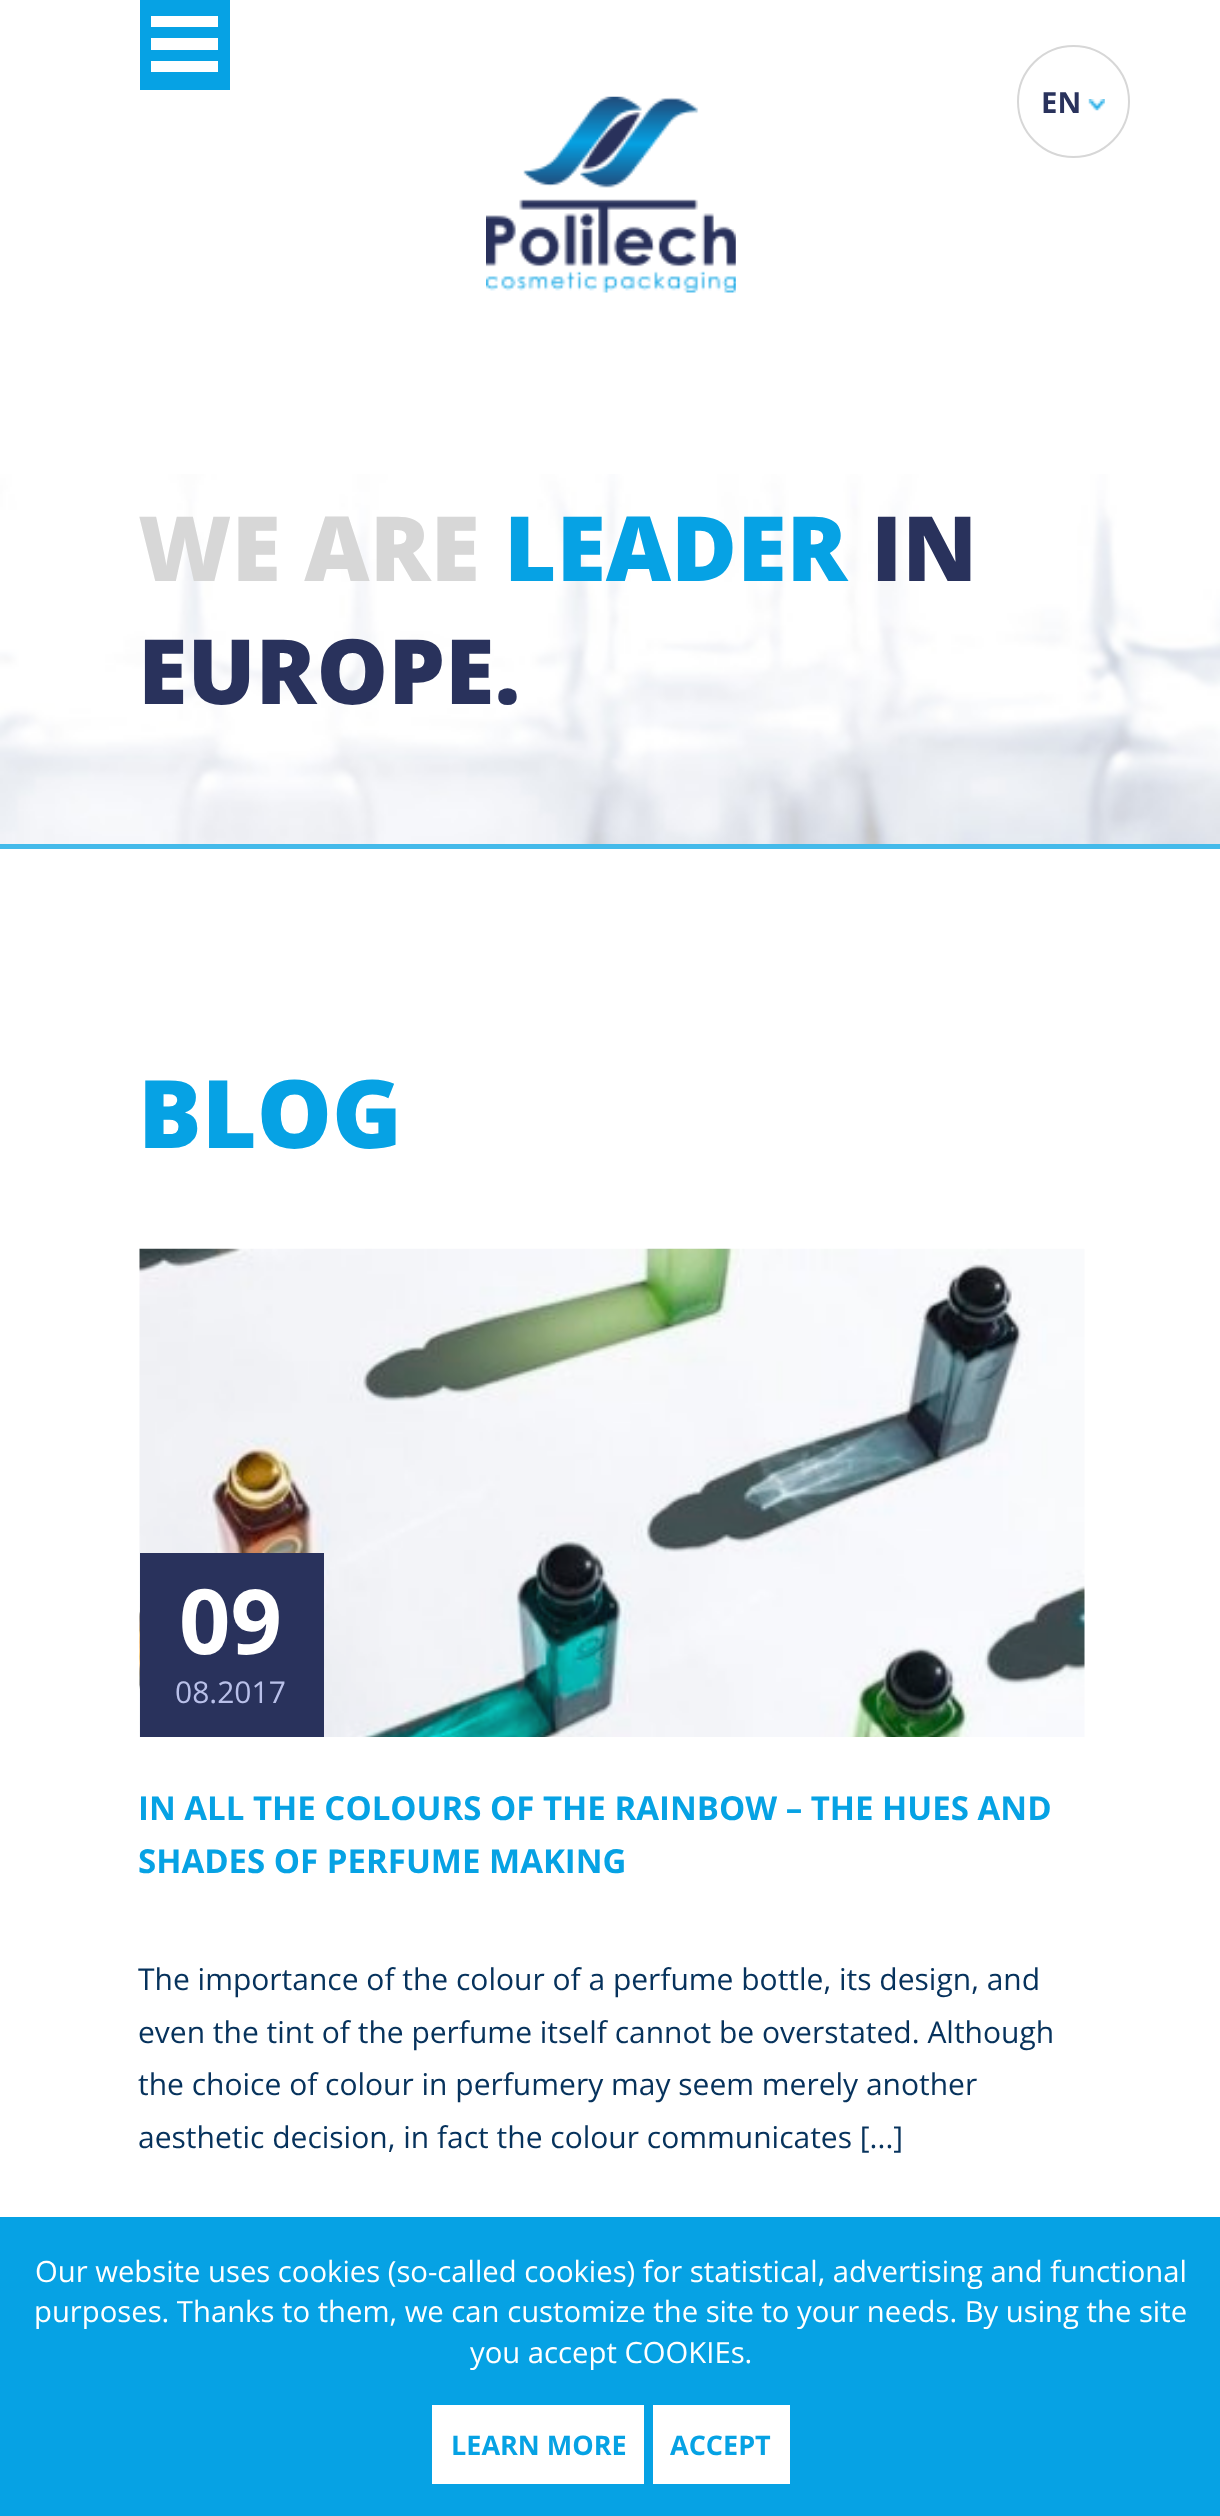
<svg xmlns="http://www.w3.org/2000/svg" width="1220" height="2516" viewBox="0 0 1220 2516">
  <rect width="100%" height="100%" fill="#fff"/>
  <path d="M140 0h90v90H140z" fill="#06a2e4"/>
  <path d="M151 61h67v11H151z" fill="#fff"/>
  <path d="M151 38h67v12H151z" fill="#fff"/>
  <path d="M151 16h67v11H151z" fill="#fff"/>
  <image x="486" y="96" width="250" height="197" href="img/1.png"/>
  <circle cx="1073.5" cy="101.5" r="55.5" fill="none" stroke="#d7d7d7" stroke-width="2"/>
  <image x="1088" y="99" width="17" height="12" href="img/2.png"/>
  <path d="M0 844h1220v5H0z" fill="#44baea"/>
  <image x="0" y="474" width="1220" height="370" href="img/3.png"/>
  <image x="139" y="1248" width="946" height="489" href="img/4.png"/>
  <path d="M140 1553h184v184H140z" fill="#29325c"/>
  <path d="M0 2217h1220v299H0z" fill="#06a2e4"/>
  <path d="M432 2405h212v79H432z" fill="#fff"/>
  <path d="M653 2405h137v79H653z" fill="#fff"/>
  <text x="1041" y="113" font-family="Open Sans" font-size="29.25" font-weight="bold" fill="#29325c">EN</text>
  <text x="138" y="581" font-family="Open Sans" font-size="90" font-weight="800" fill="#d7d7d7">WE ARE</text>
  <text x="504" y="581" font-family="Open Sans" font-size="90" font-weight="800" fill="#06a2e4">LEADER</text>
  <g font-family="Open Sans" font-size="90" font-weight="800" fill="#29325c">
    <text x="871" y="581">IN</text>
    <text x="138" y="704">EUROPE.</text>
  </g>
  <text x="138" y="1148" font-family="Open Sans" font-size="94.5" font-weight="800" fill="#06a2e4">BLOG</text>
  <text x="179" y="1654" font-family="Open Sans" font-size="90" font-weight="bold" fill="#fff">09</text>
  <text x="175" y="1703" font-family="Open Sans" font-size="30" fill="#b9c0e9">08.2017</text>
  <g font-family="Open Sans" font-size="33" font-weight="bold" fill="#06a2e4">
    <text x="138" y="1820">IN ALL THE COLOURS OF THE RAINBOW – THE HUES AND</text>
    <text x="138" y="1873">SHADES OF PERFUME MAKING</text>
  </g>
  <g font-family="Open Sans" font-size="30" fill="#06325c">
    <text x="138" y="1990">The importance of the colour of a perfume bottle, its design, and</text>
    <text x="138" y="2043">even the tint of the perfume itself cannot be overstated. Although</text>
    <text x="138" y="2095">the choice of colour in perfumery may seem merely another</text>
    <text x="138" y="2148">aesthetic decision, in fact the colour communicates [...]</text>
  </g>
  <g font-family="Open Sans" font-size="29.25" fill="#fff">
    <text x="35" y="2282">Our website uses cookies (so-called cookies) for statistical, advertising and functional</text>
    <text x="34" y="2322">purposes. Thanks to them, we can customize the site to your needs. By using the site</text>
    <text x="470" y="2363">you accept COOKIEs.</text>
  </g>
  <g font-family="Open Sans" font-size="27" font-weight="bold" fill="#06a2e4">
    <text x="451" y="2455">LEARN MORE</text>
    <text x="670" y="2455">ACCEPT</text>
  </g>
</svg>
